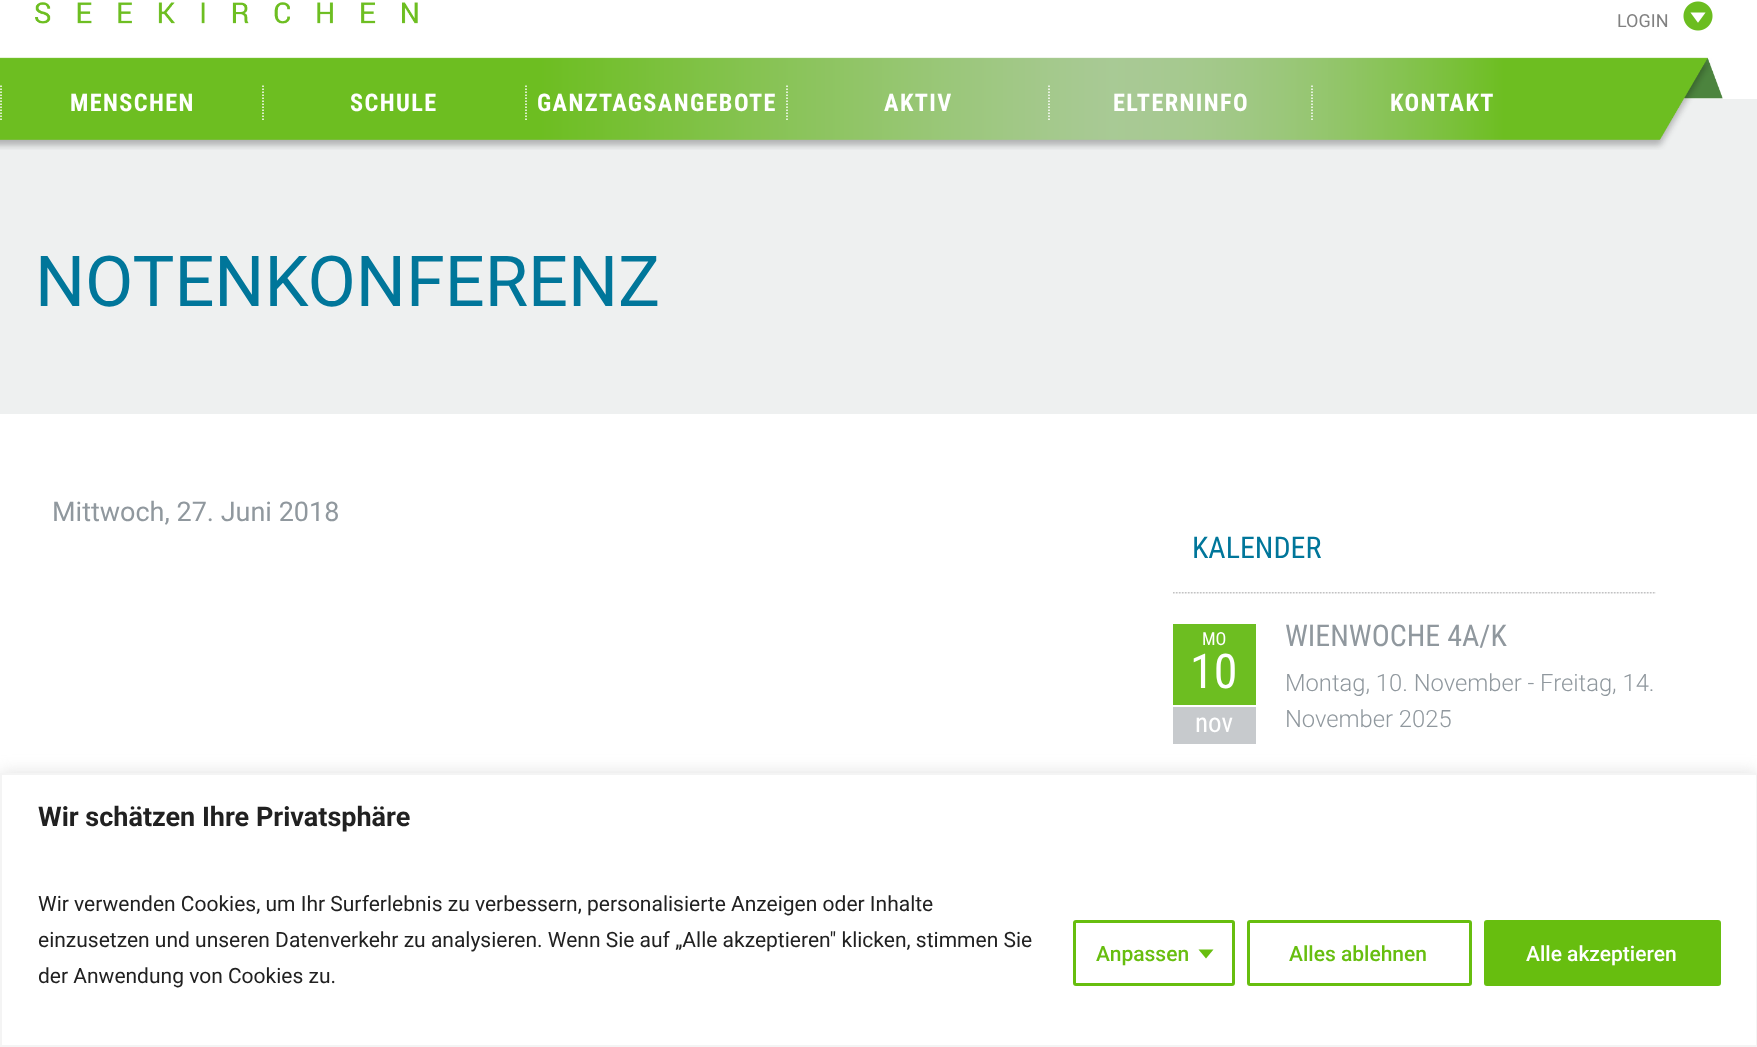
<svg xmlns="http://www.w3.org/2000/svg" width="1757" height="1047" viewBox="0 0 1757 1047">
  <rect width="100%" height="100%" fill="#fff"/>
  <image x="35" y="2" width="383" height="22" href="img/1.png"/>
  <image x="1683" y="1" width="30" height="30" href="img/2.png"/>
  <path d="M0 99h1757v315H0z" fill="#eef0f0"/>
  <image x="0" y="57" width="1723" height="93" href="img/3.png"/>
  <path d="M1 85.5V121.5" fill="none" stroke="#fff" stroke-width="1.5" stroke-dasharray="1.5 1.5"/>
  <path d="M263 85.5V121.5" fill="none" stroke="#fff" stroke-width="1.5" stroke-dasharray="1.5 1.5"/>
  <path d="M526 85.5V121.5" fill="none" stroke="#fff" stroke-width="1.5" stroke-dasharray="1.5 1.5"/>
  <path d="M787 85.5V121.5" fill="none" stroke="#fff" stroke-width="1.5" stroke-dasharray="1.5 1.5"/>
  <path d="M1049 85.5V121.5" fill="none" stroke="#fff" stroke-width="1.5" stroke-dasharray="1.5 1.5"/>
  <path d="M1312 85.5V121.5" fill="none" stroke="#fff" stroke-width="1.5" stroke-dasharray="1.5 1.5"/>
  <image x="1173" y="592" width="483" height="2" href="img/4.png"/>
  <path d="M1173 707h83v37H1173z" fill="#c7cacd"/>
  <path d="M1173 624h83v81H1173z" fill="#6dbe21"/>
  <path d="M0 771h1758v275H0z" fill="#acabab4d" filter="blur(7.5px)"/>
  <path d="M1 774h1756v272H1z" fill="#fff" stroke="#f4f4f4" stroke-width="2"/>
  <rect x="1074.5" y="921.5" width="159" height="63" rx="1.5" fill="none" stroke="#67be0f" stroke-width="3"/>
  <path d="M1198.5 949.5H1213.5L1206 958.5Z" fill="#67be0f"/>
  <rect x="1248.5" y="921.5" width="222" height="63" rx="1.5" fill="none" stroke="#67be0f" stroke-width="3"/>
  <rect x="1485.5" y="921.5" width="234" height="63" rx="1.5" fill="#67be0f" stroke="#67be0f" stroke-width="3"/>
  <text x="1617" y="27" font-family="Roboto" font-size="18" fill="#818181">LOGIN</text>
  <g font-family="Roboto Condensed" font-size="24.25" font-weight="bold" letter-spacing="1.4" fill="#fff">
    <text x="70" y="111">MENSCHEN</text>
    <text x="350" y="111">SCHULE</text>
    <text x="537" y="111">GANZTAGSANGEBOTE</text>
    <text x="884" y="111">AKTIV</text>
    <text x="1113" y="111">ELTERNINFO</text>
    <text x="1390" y="111">KONTAKT</text>
  </g>
  <text x="35" y="306" font-family="Roboto" font-size="70.25" fill="#00769a">NOTENKONFERENZ</text>
  <text x="52" y="521" font-family="Roboto" font-size="27" fill="#90989e">Mittwoch, 27. Juni 2018</text>
  <text x="1192" y="558" font-family="Roboto Condensed" font-size="30" fill="#00769a">KALENDER</text>
  <text x="1202" y="645" font-family="Roboto Condensed" font-size="18" fill="#fff">MO</text>
  <text x="1190" y="688" font-family="Roboto Condensed" font-size="48" fill="#fff">10</text>
  <text x="1195" y="732" font-family="Roboto Condensed" font-size="27" fill="#fff">nov</text>
  <text x="1285" y="646" font-family="Roboto Condensed" font-size="30" fill="#90989e">WIENWOCHE 4A/K</text>
  <g font-family="Roboto" font-size="23.75" font-weight="300" fill="#90989e">
    <text x="1285" y="691">Montag, 10. November - Freitag, 14.</text>
    <text x="1285" y="727">November 2025</text>
  </g>
  <text x="38" y="826" font-family="Roboto" font-size="27" font-weight="bold" fill="#212121">Wir schätzen Ihre Privatsphäre</text>
  <g font-family="Roboto" font-size="21" fill="#212121">
    <text x="38" y="911">Wir verwenden Cookies, um Ihr Surferlebnis zu verbessern, personalisierte Anzeigen oder Inhalte</text>
    <text x="38" y="947">einzusetzen und unseren Datenverkehr zu analysieren. Wenn Sie auf „Alle akzeptieren" klicken, stimmen Sie</text>
    <text x="38" y="983">der Anwendung von Cookies zu.</text>
  </g>
  <g font-family="Roboto" font-size="21" font-weight="500" fill="#67be0f">
    <text x="1096" y="961">Anpassen</text>
    <text x="1289" y="961">Alles ablehnen</text>
  </g>
  <text x="1526" y="961" font-family="Roboto" font-size="21" font-weight="500" fill="#fff">Alle akzeptieren</text>
</svg>
